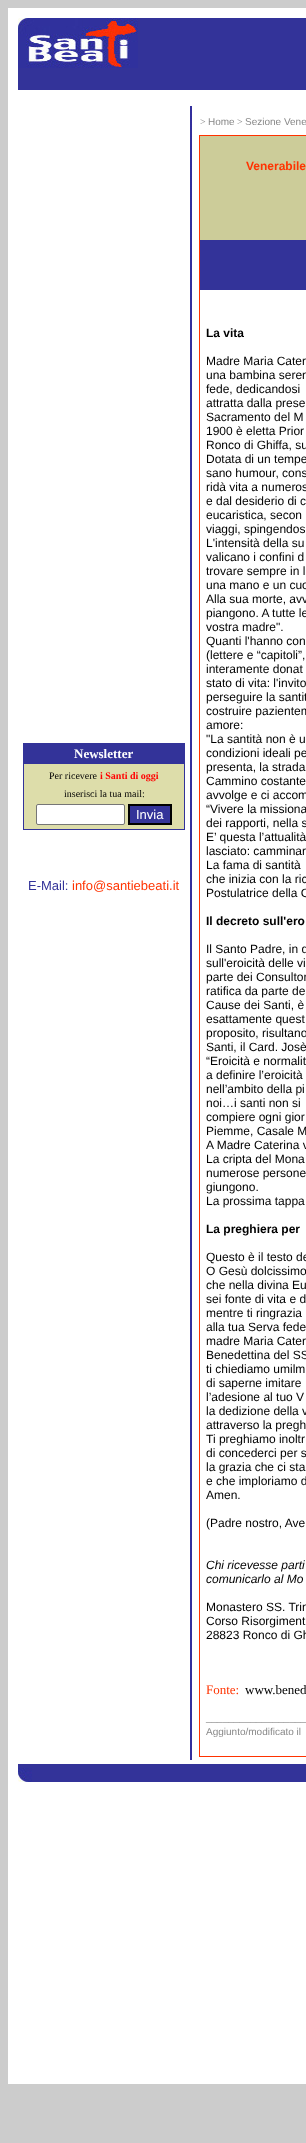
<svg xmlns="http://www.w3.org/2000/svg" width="306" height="2143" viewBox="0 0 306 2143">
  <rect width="100%" height="100%" fill="#ccc"/>
  <path d="M8 8h298v2076H8z" fill="#fff"/>
  <path d="M18 18h288v72H18z" fill="#339"/>
  <image x="18" y="18" width="120" height="50" href="img/1.png"/>
  <path d="M23 743h162v87H23z" fill="#339"/>
  <path d="M24 764h160v65H24z" fill="#dda"/>
  <rect x="36.5" y="804.5" width="88" height="20" rx="1.5" fill="#fff" stroke="#767676"/>
  <path d="M129 805h42v19H129z" fill="#339" stroke="#000" stroke-width="2"/>
  <image x="190" y="106" width="2" height="1654" href="img/2.png"/>
  <path d="M199 135h107v1622H199z" fill="#f30"/>
  <path d="M200 290h106v1466H200z" fill="#fff"/>
  <path d="M200 136h106v104H200z" fill="#cc9"/>
  <path d="M200 240h106v50H200z" fill="#339"/>
  <path d="M18 1764h288v18H18z" fill="#339"/>
  <image x="18" y="1768" width="14" height="14" href="img/3.png"/>
  <text x="74" y="758" font-family="Liberation Serif" font-size="13" font-weight="bold" fill="#fff">Newsletter</text>
  <text x="49" y="779" font-family="Liberation Serif" font-size="10" fill="#000">Per ricevere</text>
  <text x="100" y="779" font-family="Liberation Serif" font-size="10" font-weight="bold" fill="#f00">i Santi di oggi</text>
  <text x="64" y="797" font-family="Liberation Serif" font-size="10" fill="#000">inserisci la tua mail:</text>
  <text x="136" y="819" font-family="Liberation Sans" font-size="13" fill="#fff">Invia</text>
  <text x="28" y="890" font-family="Liberation Sans" font-size="13" fill="#339">E-Mail:</text>
  <text x="72" y="890" font-family="Liberation Sans" font-size="13" fill="#f30">info@santiebeati.it</text>
  <text x="200" y="125" font-family="Liberation Serif" font-size="10" fill="#888">&gt;</text>
  <text x="208" y="125" font-family="Liberation Sans" font-size="10" fill="#888">Home</text>
  <text x="237" y="125" font-family="Liberation Serif" font-size="10" fill="#888">&gt;</text>
  <text x="245" y="125" font-family="Liberation Sans" font-size="10" fill="#888">Sezione Vene</text>
  <text x="246" y="170" font-family="Liberation Sans" font-size="12" font-weight="bold" fill="#f30">Venerabile</text>
  <text x="206" y="337" font-family="Liberation Sans" font-size="12" font-weight="bold" fill="#000">La vita</text>
  <g font-family="Liberation Sans" font-size="12" fill="#000">
    <text x="206" y="365">Madre Maria Cater</text>
    <text x="206" y="379">una bambina seren</text>
    <text x="206" y="393">fede, dedicandosi</text>
    <text x="206" y="407">attratta dalla prese</text>
    <text x="206" y="421">Sacramento del M</text>
    <text x="206" y="435">1900 è eletta Prior</text>
    <text x="206" y="449">Ronco di Ghiffa, su</text>
    <text x="206" y="463">Dotata di un tempe</text>
    <text x="206" y="477">sano humour, cons</text>
    <text x="206" y="491">ridà vita a numeros</text>
    <text x="206" y="505">e dal desiderio di c</text>
    <text x="206" y="519">eucaristica, secon</text>
    <text x="206" y="533">viaggi, spingendos</text>
    <text x="206" y="547">L'intensità della su</text>
    <text x="206" y="561">valicano i confini d</text>
    <text x="206" y="575">trovare sempre in l</text>
    <text x="206" y="589">una mano e un cuo</text>
    <text x="206" y="603">Alla sua morte, avv</text>
    <text x="206" y="617">piangono. A tutte le</text>
    <text x="206" y="631">vostra madre".</text>
    <text x="206" y="645">Quanti l'hanno con</text>
    <text x="206" y="659">(lettere e “capitoli”,</text>
    <text x="206" y="673">interamente donat</text>
    <text x="206" y="687">stato di vita: l'invito</text>
    <text x="206" y="701">perseguire la santit</text>
    <text x="206" y="715">costruire pazientem</text>
    <text x="206" y="729">amore:</text>
    <text x="206" y="743">"La santità non è u</text>
    <text x="206" y="757">condizioni ideali pe</text>
    <text x="206" y="771">presenta, la strada</text>
    <text x="206" y="785">Cammino costante</text>
    <text x="206" y="799">avvolge e ci accom</text>
    <text x="206" y="813">“Vivere la missiona</text>
    <text x="206" y="827">dei rapporti, nella s</text>
    <text x="206" y="841">E’ questa l’attualità</text>
    <text x="206" y="855">lasciato: camminar</text>
    <text x="206" y="869">La fama di santità</text>
    <text x="206" y="883">che inizia con la ric</text>
    <text x="206" y="897">Postulatrice della C</text>
  </g>
  <text x="206" y="925" font-family="Liberation Sans" font-size="12" font-weight="bold" fill="#000">Il decreto sull'ero</text>
  <g font-family="Liberation Sans" font-size="12" fill="#000">
    <text x="206" y="953">Il Santo Padre, in d</text>
    <text x="206" y="967">sull'eroicità delle vi</text>
    <text x="206" y="981">parte dei Consultor</text>
    <text x="206" y="995">ratifica da parte de</text>
    <text x="206" y="1009">Cause dei Santi, è</text>
    <text x="206" y="1023">esattamente quest</text>
    <text x="206" y="1037">proposito, risultano</text>
    <text x="206" y="1051">Santi, il Card. Josè</text>
    <text x="206" y="1065">“Eroicità e normalit</text>
    <text x="206" y="1079">a definire l’eroicità</text>
    <text x="206" y="1093">nell’ambito della pi</text>
    <text x="206" y="1107">noi…i santi non si</text>
    <text x="206" y="1121">compiere ogni gior</text>
    <text x="206" y="1135">Piemme, Casale M</text>
    <text x="206" y="1149">A Madre Caterina v</text>
    <text x="206" y="1163">La cripta del Mona</text>
    <text x="206" y="1177">numerose persone</text>
    <text x="206" y="1191">giungono.</text>
    <text x="206" y="1205">La prossima tappa</text>
  </g>
  <text x="206" y="1233" font-family="Liberation Sans" font-size="12" font-weight="bold" fill="#000">La preghiera per</text>
  <g font-family="Liberation Sans" font-size="12" fill="#000">
    <text x="206" y="1261">Questo è il testo de</text>
    <text x="206" y="1275">O Gesù dolcissimo</text>
    <text x="206" y="1289">che nella divina Eu</text>
    <text x="206" y="1303">sei fonte di vita e d</text>
    <text x="206" y="1317">mentre ti ringrazia</text>
    <text x="206" y="1331">alla tua Serva fede</text>
    <text x="206" y="1345">madre Maria Cater</text>
    <text x="206" y="1359">Benedettina del SS</text>
    <text x="206" y="1373">ti chiediamo umilm</text>
    <text x="206" y="1387">di saperne imitare</text>
    <text x="206" y="1401">l’adesione al tuo V</text>
    <text x="206" y="1415">la dedizione della v</text>
    <text x="206" y="1429">attraverso la pregh</text>
    <text x="206" y="1443">Ti preghiamo inoltr</text>
    <text x="206" y="1457">di concederci per s</text>
    <text x="206" y="1471">la grazia che ci sta</text>
    <text x="206" y="1485">e che imploriamo d</text>
    <text x="206" y="1499">Amen.</text>
    <text x="206" y="1527">(Padre nostro, Ave</text>
  </g>
  <g font-family="Liberation Sans" font-size="12" font-style="italic" fill="#000">
    <text x="206" y="1569">Chi ricevesse parti</text>
    <text x="206" y="1583">comunicarlo al Mo</text>
  </g>
  <g font-family="Liberation Sans" font-size="12" fill="#000">
    <text x="206" y="1611">Monastero SS. Trin</text>
    <text x="206" y="1625">Corso Risorgiment</text>
    <text x="206" y="1639">28823 Ronco di Gh</text>
  </g>
  <text x="206" y="1694" font-family="Liberation Serif" font-size="13" fill="#f30">Fonte:</text>
  <text x="245" y="1694" font-family="Liberation Serif" font-size="13" fill="#000">www.bened</text>
  <g font-family="Liberation Sans" font-size="10" fill="#888">
    <text x="206" y="1721">__________________</text>
    <text x="206" y="1735">Aggiunto/modificato il</text>
  </g>
</svg>
